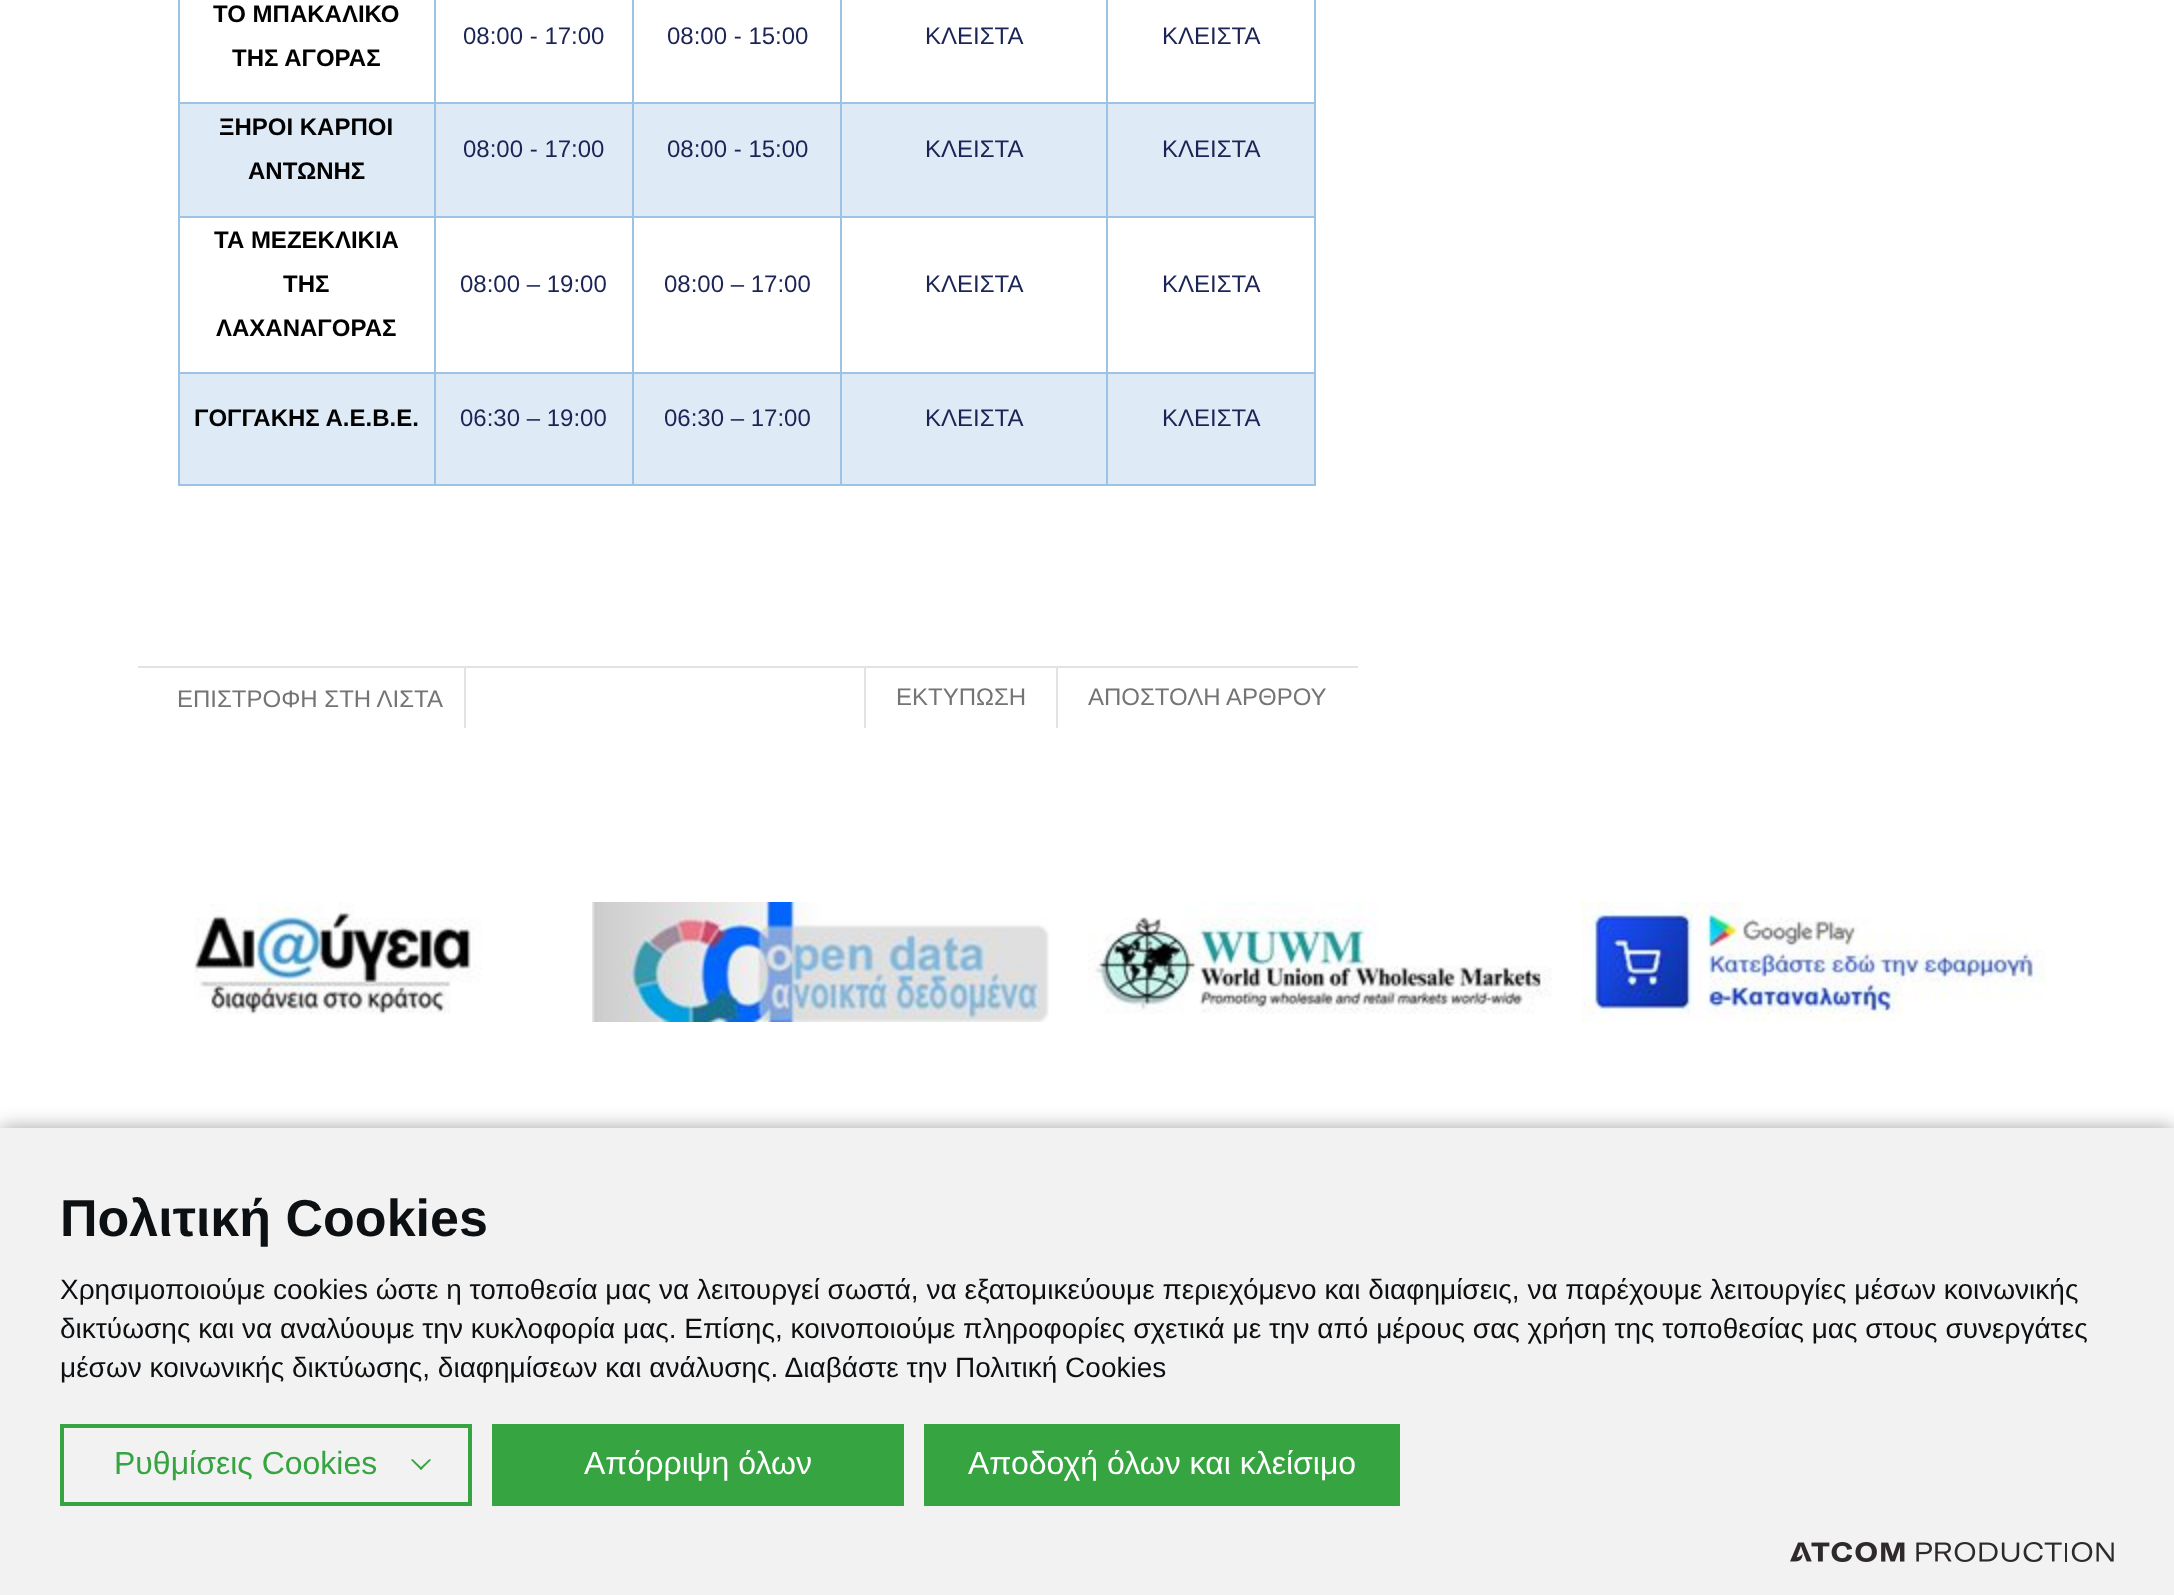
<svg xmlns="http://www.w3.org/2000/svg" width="2174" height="1595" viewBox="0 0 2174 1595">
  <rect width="100%" height="100%" fill="#fff"/>
  <path d="M1314 0h2v486H1314z" fill="#9cc2e5"/>
  <path d="M1106 484h210v2H1106z" fill="#9cc2e5"/>
  <path d="M1106 372h2v114H1106z" fill="#9cc2e5"/>
  <path d="M1106 372h210v2H1106z" fill="#9cc2e5"/>
  <path d="M1106 216h2v158H1106z" fill="#9cc2e5"/>
  <path d="M1106 216h210v2H1106z" fill="#9cc2e5"/>
  <path d="M1106 102h2v116H1106z" fill="#9cc2e5"/>
  <path d="M1106 102h210v2H1106z" fill="#9cc2e5"/>
  <path d="M1106 0h2v104H1106z" fill="#9cc2e5"/>
  <path d="M840 484h268v2H840z" fill="#9cc2e5"/>
  <path d="M840 372h2v114H840z" fill="#9cc2e5"/>
  <path d="M840 372h268v2H840z" fill="#9cc2e5"/>
  <path d="M840 216h2v158H840z" fill="#9cc2e5"/>
  <path d="M840 216h268v2H840z" fill="#9cc2e5"/>
  <path d="M840 102h2v116H840z" fill="#9cc2e5"/>
  <path d="M840 102h268v2H840z" fill="#9cc2e5"/>
  <path d="M840 0h2v104H840z" fill="#9cc2e5"/>
  <path d="M632 484h210v2H632z" fill="#9cc2e5"/>
  <path d="M632 372h2v114H632z" fill="#9cc2e5"/>
  <path d="M632 372h210v2H632z" fill="#9cc2e5"/>
  <path d="M632 216h2v158H632z" fill="#9cc2e5"/>
  <path d="M632 216h210v2H632z" fill="#9cc2e5"/>
  <path d="M632 102h2v116H632z" fill="#9cc2e5"/>
  <path d="M632 102h210v2H632z" fill="#9cc2e5"/>
  <path d="M632 0h2v104H632z" fill="#9cc2e5"/>
  <path d="M434 484h200v2H434z" fill="#9cc2e5"/>
  <path d="M434 372h2v114H434z" fill="#9cc2e5"/>
  <path d="M434 372h200v2H434z" fill="#9cc2e5"/>
  <path d="M434 216h2v158H434z" fill="#9cc2e5"/>
  <path d="M434 216h200v2H434z" fill="#9cc2e5"/>
  <path d="M434 102h2v116H434z" fill="#9cc2e5"/>
  <path d="M434 102h200v2H434z" fill="#9cc2e5"/>
  <path d="M434 0h2v104H434z" fill="#9cc2e5"/>
  <path d="M178 484h258v2H178z" fill="#9cc2e5"/>
  <path d="M178 372h2v114H178z" fill="#9cc2e5"/>
  <path d="M178 372h258v2H178z" fill="#9cc2e5"/>
  <path d="M178 216h2v158H178z" fill="#9cc2e5"/>
  <path d="M178 216h258v2H178z" fill="#9cc2e5"/>
  <path d="M178 102h2v116H178z" fill="#9cc2e5"/>
  <path d="M178 102h258v2H178z" fill="#9cc2e5"/>
  <path d="M178 0h2v104H178z" fill="#9cc2e5"/>
  <path d="M180 104h254v112H180z" fill="#deeaf6"/>
  <path d="M436 104h196v112H436z" fill="#deeaf6"/>
  <path d="M634 104h206v112H634z" fill="#deeaf6"/>
  <path d="M842 104h264v112H842z" fill="#deeaf6"/>
  <path d="M1108 104h206v112H1108z" fill="#deeaf6"/>
  <path d="M180 374h254v110H180z" fill="#deeaf6"/>
  <path d="M436 374h196v110H436z" fill="#deeaf6"/>
  <path d="M634 374h206v110H634z" fill="#deeaf6"/>
  <path d="M842 374h264v110H842z" fill="#deeaf6"/>
  <path d="M1108 374h206v110H1108z" fill="#deeaf6"/>
  <path d="M138 666h1220v2H138z" fill="#e3e3e3"/>
  <path d="M464 668h2v60H464z" fill="#e3e3e3"/>
  <path d="M864 668h2v60H864z" fill="#e3e3e3"/>
  <path d="M1056 668h2v60H1056z" fill="#e3e3e3"/>
  <image x="194" y="902" width="288" height="113" href="img/1.png"/>
  <image x="592" y="902" width="457" height="120" href="img/2.png"/>
  <image x="1088" y="902" width="464" height="112" href="img/3.png"/>
  <image x="1582" y="902" width="464" height="120" href="img/4.png"/>
  <path d="M0 1128h2174v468H0z" fill="#0000005e" filter="blur(10px)"/>
  <path d="M0 1128h2174v467H0z" fill="#f2f2f2"/>
  <path d="M62 1426h408v78H62z" fill="none" stroke="#36a441" stroke-width="4"/>
  <path d="M429.5 1459L431 1460L421 1470L419.5 1468.5Z" fill="#36a441"/>
  <path d="M412.5 1459L422.5 1468.5L421 1470L411 1460Z" fill="#36a441"/>
  <path d="M492 1424h412v82H492z" fill="#36a441"/>
  <path d="M924 1424h476v82H924z" fill="#36a441"/>
  <image x="1790" y="1542" width="324" height="20" href="img/5.png"/>
  <g font-family="Liberation Sans" font-size="24" font-weight="bold" fill="#010101">
    <text x="213" y="22">ΤΟ ΜΠΑΚΑΛΙΚΟ</text>
    <text x="232" y="66">ΤΗΣ ΑΓΟΡΑΣ</text>
  </g>
  <g font-family="Liberation Sans" font-size="24" fill="#1b2455">
    <text x="463" y="44">08:00 - 17:00</text>
    <text x="667" y="44">08:00 - 15:00</text>
    <text x="925" y="44">ΚΛΕΙΣΤΑ</text>
    <text x="1162" y="44">ΚΛΕΙΣΤΑ</text>
  </g>
  <g font-family="Liberation Sans" font-size="24" font-weight="bold" fill="#010101">
    <text x="219" y="135">ΞΗΡΟΙ ΚΑΡΠΟΙ</text>
    <text x="248" y="179">ΑΝΤΩΝΗΣ</text>
  </g>
  <g font-family="Liberation Sans" font-size="24" fill="#1b2455">
    <text x="463" y="157">08:00 - 17:00</text>
    <text x="667" y="157">08:00 - 15:00</text>
    <text x="925" y="157">ΚΛΕΙΣΤΑ</text>
    <text x="1162" y="157">ΚΛΕΙΣΤΑ</text>
  </g>
  <g font-family="Liberation Sans" font-size="24" font-weight="bold" fill="#010101">
    <text x="214" y="248">ΤΑ ΜΕΖΕΚΛΙΚΙΑ</text>
    <text x="283" y="292">ΤΗΣ</text>
    <text x="216" y="336">ΛΑΧΑΝΑΓΟΡΑΣ</text>
  </g>
  <g font-family="Liberation Sans" font-size="24" fill="#1b2455">
    <text x="460" y="292">08:00 – 19:00</text>
    <text x="664" y="292">08:00 – 17:00</text>
    <text x="925" y="292">ΚΛΕΙΣΤΑ</text>
    <text x="1162" y="292">ΚΛΕΙΣΤΑ</text>
  </g>
  <text x="194" y="426" font-family="Liberation Sans" font-size="24" font-weight="bold" fill="#010101">ΓΟΓΓΑΚΗΣ Α.Ε.Β.Ε.</text>
  <g font-family="Liberation Sans" font-size="24" fill="#1b2455">
    <text x="460" y="426">06:30 – 19:00</text>
    <text x="664" y="426">06:30 – 17:00</text>
    <text x="925" y="426">ΚΛΕΙΣΤΑ</text>
    <text x="1162" y="426">ΚΛΕΙΣΤΑ</text>
  </g>
  <g font-family="Liberation Sans" font-size="24" fill="#757374">
    <text x="177" y="707">ΕΠΙΣΤΡΟΦΗ ΣΤΗ ΛΙΣΤΑ</text>
    <text x="896" y="705">ΕΚΤΥΠΩΣΗ</text>
    <text x="1088" y="705">ΑΠΟΣΤΟΛΗ ΑΡΘΡΟΥ</text>
  </g>
  <text x="60" y="1236" font-family="Liberation Sans" font-size="52" font-weight="bold" fill="#0d1012">Πολιτική Cookies</text>
  <g font-family="Liberation Sans" font-size="28" fill="#0d1012">
    <text x="60" y="1299">Χρησιμοποιούμε cookies ώστε η τοποθεσία μας να λειτουργεί σωστά, να εξατομικεύουμε περιεχόμενο και διαφημίσεις, να παρέχουμε λειτουργίες μέσων κοινωνικής</text>
    <text x="60" y="1338">δικτύωσης και να αναλύουμε την κυκλοφορία μας. Επίσης, κοινοποιούμε πληροφορίες σχετικά με την από μέρους σας χρήση της τοποθεσίας μας στους συνεργάτες</text>
    <text x="60" y="1377">μέσων κοινωνικής δικτύωσης, διαφημίσεων και ανάλυσης. Διαβάστε την Πολιτική Cookies</text>
  </g>
  <text x="114" y="1474" font-family="Liberation Sans" font-size="32" fill="#36a441">Ρυθμίσεις Cookies</text>
  <g font-family="Liberation Sans" font-size="32" fill="#fff">
    <text x="584" y="1474">Απόρριψη όλων</text>
    <text x="968" y="1474">Αποδοχή όλων και κλείσιμο</text>
  </g>
</svg>
